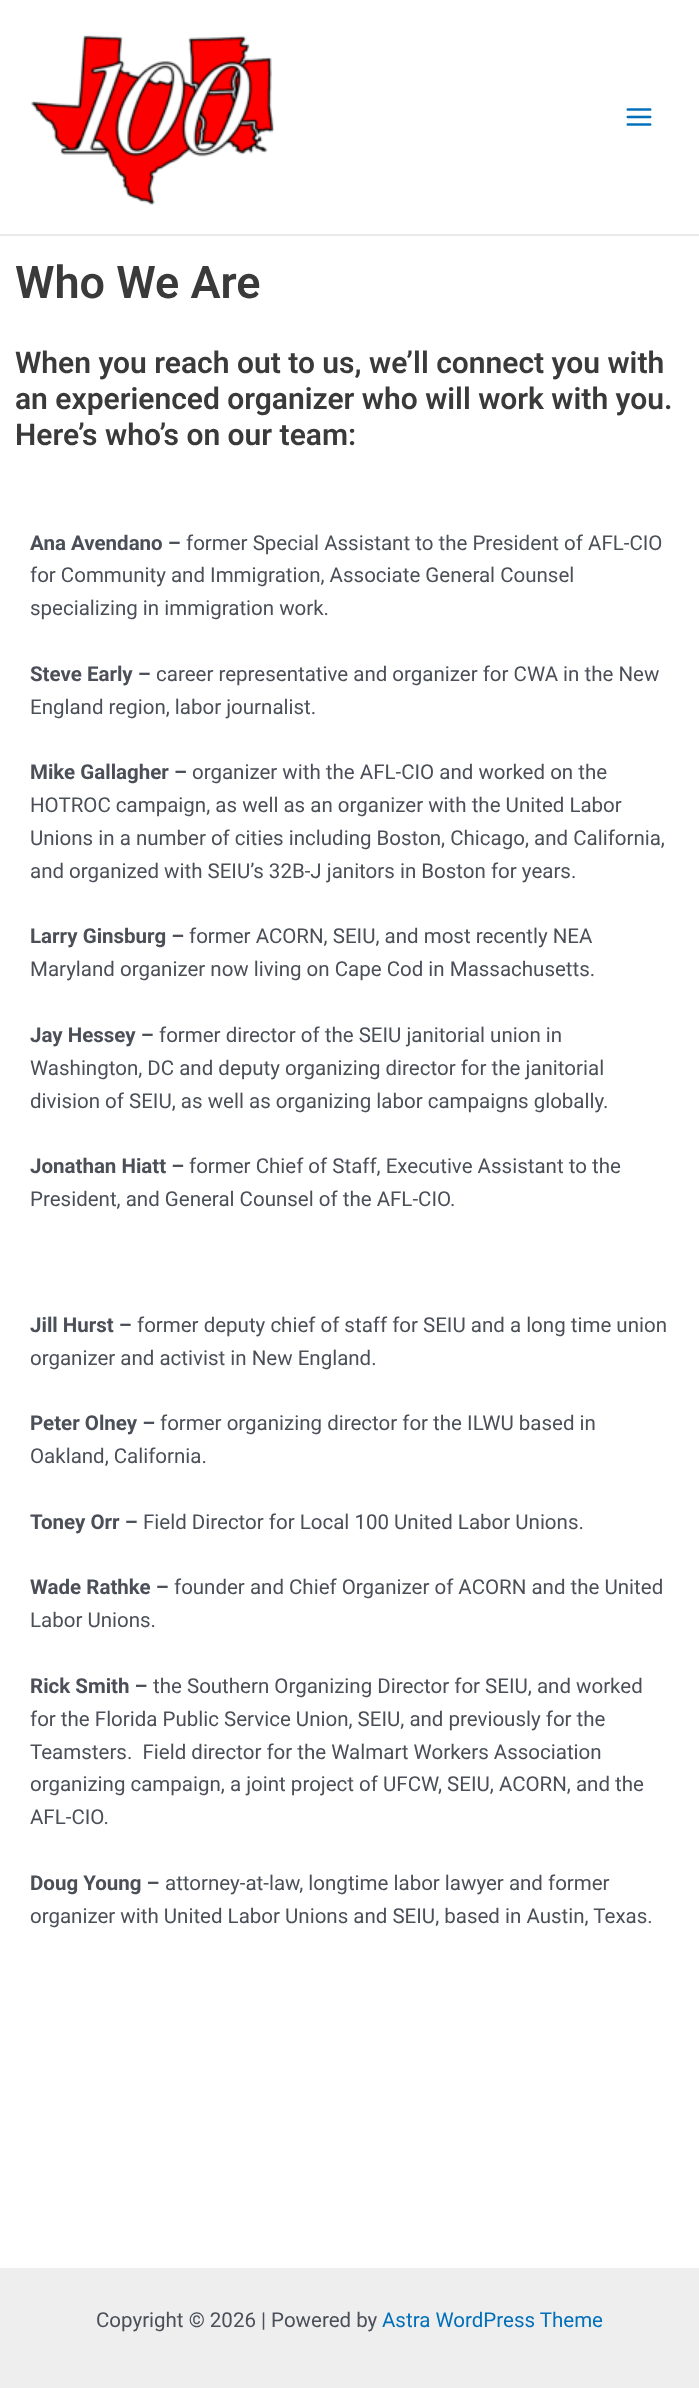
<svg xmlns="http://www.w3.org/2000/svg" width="699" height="2388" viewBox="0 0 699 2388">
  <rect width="100%" height="100%" fill="#fff"/>
  <path d="M0 234h699v2H0z" fill="#eaeaea"/>
  <image x="31" y="35" width="243" height="170" href="img/1.png"/>
  <image x="626" y="108" width="26" height="18" href="img/2.png"/>
  <path d="M0 2268h699v120H0z" fill="#eee"/>
  <text x="15" y="298" font-family="Roboto" font-size="45" font-weight="600" fill="#3a3a3a">Who We Are</text>
  <g font-family="Roboto" font-size="30" font-weight="600" fill="#3a3a3a">
    <text x="15" y="373">When you reach out to us, we’ll connect you with</text>
    <text x="15" y="409">an experienced organizer who will work with you.</text>
    <text x="15" y="445">Here’s who’s on our team:</text>
  </g>
  <text x="30" y="550" font-family="Roboto" font-size="20.5" font-weight="bold" fill="#4b4f58">Ana Avendano –</text>
  <g font-family="Roboto" font-size="20.5" fill="#4b4f58">
    <text x="186" y="550">former Special Assistant to the President of AFL-CIO</text>
    <text x="30" y="582">for Community and Immigration, Associate General Counsel</text>
    <text x="30" y="615">specializing in immigration work.</text>
  </g>
  <text x="30" y="681" font-family="Roboto" font-size="20.5" font-weight="bold" fill="#4b4f58">Steve Early –</text>
  <g font-family="Roboto" font-size="20.5" fill="#4b4f58">
    <text x="156" y="681">career representative and organizer for CWA in the New</text>
    <text x="30" y="714">England region, labor journalist.</text>
  </g>
  <text x="30" y="779" font-family="Roboto" font-size="20.5" font-weight="bold" fill="#4b4f58">Mike Gallagher –</text>
  <g font-family="Roboto" font-size="20.5" fill="#4b4f58">
    <text x="192" y="779">organizer with the AFL-CIO and worked on the</text>
    <text x="30" y="812">HOTROC campaign, as well as an organizer with the United Labor</text>
    <text x="30" y="845">Unions in a number of cities including Boston, Chicago, and California,</text>
    <text x="30" y="878">and organized with SEIU’s 32B-J janitors in Boston for years.</text>
  </g>
  <text x="30" y="943" font-family="Roboto" font-size="20.5" font-weight="bold" fill="#4b4f58">Larry Ginsburg –</text>
  <g font-family="Roboto" font-size="20.5" fill="#4b4f58">
    <text x="189" y="943">former ACORN, SEIU, and most recently NEA</text>
    <text x="30" y="976">Maryland organizer now living on Cape Cod in Massachusetts.</text>
  </g>
  <text x="30" y="1042" font-family="Roboto" font-size="20.5" font-weight="bold" fill="#4b4f58">Jay Hessey –</text>
  <g font-family="Roboto" font-size="20.5" fill="#4b4f58">
    <text x="159" y="1042">former director of the SEIU janitorial union in</text>
    <text x="30" y="1075">Washington, DC and deputy organizing director for the janitorial</text>
    <text x="30" y="1108">division of SEIU, as well as organizing labor campaigns globally.</text>
  </g>
  <text x="30" y="1173" font-family="Roboto" font-size="20.5" font-weight="bold" fill="#4b4f58">Jonathan Hiatt –</text>
  <g font-family="Roboto" font-size="20.5" fill="#4b4f58">
    <text x="189" y="1173">former Chief of Staff, Executive Assistant to the</text>
    <text x="30" y="1206">President, and General Counsel of the AFL-CIO.</text>
  </g>
  <text x="30" y="1332" font-family="Roboto" font-size="20.5" font-weight="bold" fill="#4b4f58">Jill Hurst –</text>
  <g font-family="Roboto" font-size="20.5" fill="#4b4f58">
    <text x="137" y="1332">former deputy chief of staff for SEIU and a long time union</text>
    <text x="30" y="1365">organizer and activist in New England.</text>
  </g>
  <text x="30" y="1430" font-family="Roboto" font-size="20.5" font-weight="bold" fill="#4b4f58">Peter Olney –</text>
  <g font-family="Roboto" font-size="20.5" fill="#4b4f58">
    <text x="160" y="1430">former organizing director for the ILWU based in</text>
    <text x="30" y="1463">Oakland, California.</text>
  </g>
  <text x="30" y="1529" font-family="Roboto" font-size="20.5" font-weight="bold" fill="#4b4f58">Toney Orr –</text>
  <text x="143" y="1529" font-family="Roboto" font-size="20.5" fill="#4b4f58">Field Director for Local 100 United Labor Unions.</text>
  <text x="30" y="1594" font-family="Roboto" font-size="20.5" font-weight="bold" fill="#4b4f58">Wade Rathke –</text>
  <g font-family="Roboto" font-size="20.5" fill="#4b4f58">
    <text x="174" y="1594">founder and Chief Organizer of ACORN and the United</text>
    <text x="30" y="1627">Labor Unions.</text>
  </g>
  <text x="30" y="1693" font-family="Roboto" font-size="20.5" font-weight="bold" fill="#4b4f58">Rick Smith –</text>
  <g font-family="Roboto" font-size="20.5" fill="#4b4f58">
    <text x="153" y="1693">the Southern Organizing Director for SEIU, and worked</text>
    <text x="30" y="1726">for the Florida Public Service Union, SEIU, and previously for the</text>
    <text x="30" y="1759" xml:space="preserve">Teamsters.  Field director for the Walmart Workers Association</text>
    <text x="30" y="1791">organizing campaign, a joint project of UFCW, SEIU, ACORN, and the</text>
    <text x="30" y="1824">AFL-CIO.</text>
  </g>
  <text x="30" y="1890" font-family="Roboto" font-size="20.5" font-weight="bold" fill="#4b4f58">Doug Young –</text>
  <g font-family="Roboto" font-size="20.5" fill="#4b4f58">
    <text x="165" y="1890">attorney-at-law, longtime labor lawyer and former</text>
    <text x="30" y="1923">organizer with United Labor Unions and SEIU, based in Austin, Texas.</text>
    <text x="96" y="2327">Copyright © 2026 | Powered by</text>
  </g>
  <text x="382" y="2327" font-family="Roboto" font-size="20.5" fill="#0170b9">Astra WordPress Theme</text>
</svg>
